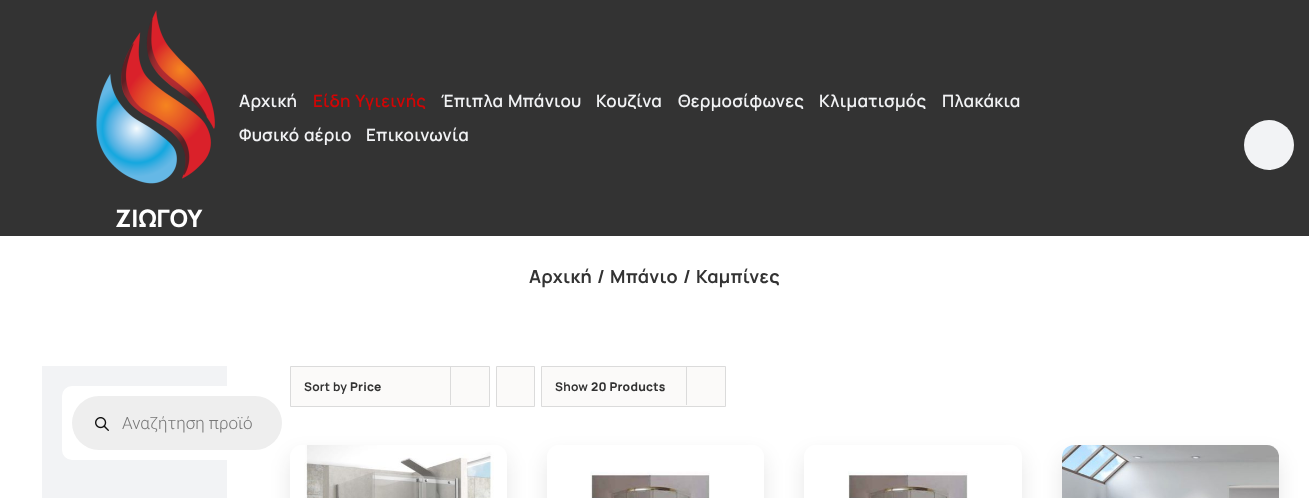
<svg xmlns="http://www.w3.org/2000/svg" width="1309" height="498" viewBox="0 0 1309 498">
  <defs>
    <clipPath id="clip1"><path d="M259 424H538V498H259ZM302 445H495C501.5 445 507 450.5 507 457V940C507 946.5 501.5 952 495 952H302C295.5 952 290 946.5 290 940V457C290 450.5 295.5 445 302 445Z" clip-rule="evenodd"/></clipPath>
    <clipPath id="clip2"><path d="M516 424H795V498H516ZM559 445H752C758.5 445 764 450.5 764 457V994C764 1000.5 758.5 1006 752 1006H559C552.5 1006 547 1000.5 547 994V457C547 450.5 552.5 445 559 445Z" clip-rule="evenodd"/></clipPath>
    <clipPath id="clip3"><path d="M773 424H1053V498H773ZM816 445H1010C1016.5 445 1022 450.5 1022 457V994C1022 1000.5 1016.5 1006 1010 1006H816C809.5 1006 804 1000.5 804 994V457C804 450.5 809.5 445 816 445Z" clip-rule="evenodd"/></clipPath>
  </defs>
  <rect width="100%" height="100%" fill="#fff"/>
  <path d="M0 0h1309v236H0z" fill="#333"/>
  <image x="96" y="10" width="119" height="174" href="img/1.png"/>
  <circle cx="1269" cy="145" r="25" fill="#f2f3f5"/>
  <path d="M42 366h185v132H42z" fill="#f2f3f5"/>
  <rect x="62" y="386" width="230" height="74" rx="10" fill="#fff"/>
  <path d="M290.5 366.5h199v40H290.5z" fill="#fbfaf9" stroke="#dbdbdb"/>
  <path d="M450 366h1v39H450z" fill="#dbdbdb"/>
  <path d="M496.5 366.5h38v40H496.5z" fill="#fbfaf9" stroke="#dbdbdb"/>
  <path d="M541.5 366.5h184v40H541.5z" fill="#fbfaf9" stroke="#dbdbdb"/>
  <path d="M686 366h1v39H686z" fill="#dbdbdb"/>
  <rect x="72" y="396" width="210" height="54" rx="27" fill="#eee"/>
  <g clip-path="url(#clip1)">
    <rect x="290" y="455" width="217" height="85" rx="12" fill="#1315161c" filter="blur(10px)"/>
  </g>
  <image x="304" y="445" width="190" height="53" href="img/2.png"/>
  <g clip-path="url(#clip2)">
    <rect x="547" y="455" width="217" height="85" rx="12" fill="#1315161c" filter="blur(10px)"/>
  </g>
  <image x="590" y="471" width="120" height="27" href="img/3.png"/>
  <g clip-path="url(#clip3)">
    <rect x="804" y="455" width="218" height="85" rx="12" fill="#1315161c" filter="blur(10px)"/>
  </g>
  <image x="848" y="471" width="120" height="27" href="img/4.png"/>
  <rect x="1062" y="455" width="217" height="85" rx="12" fill="#1315161c" filter="blur(10px)"/>
  <image x="1062" y="445" width="217" height="53" href="img/5.png"/>
  <image x="95" y="417" width="14" height="14" href="img/6.png"/>
  <text x="239" y="107" font-family="Manrope" font-size="17" font-weight="600" letter-spacing="0.25" fill="#f2f3f5">Αρχική</text>
  <text x="313" y="107" font-family="Manrope" font-size="17" font-weight="600" letter-spacing="0.25" fill="#d00505">Είδη Υγιεινής</text>
  <g font-family="Manrope" font-size="17" font-weight="600" letter-spacing="0.25" fill="#f2f3f5">
    <text x="441" y="107">Έπιπλα Μπάνιου</text>
    <text x="596" y="107">Κουζίνα</text>
    <text x="678" y="107">Θερμοσίφωνες</text>
    <text x="819" y="107">Κλιματισμός</text>
    <text x="942" y="107">Πλακάκια</text>
    <text x="239" y="141">Φυσικό αέριο</text>
    <text x="366" y="141">Επικοινωνία</text>
  </g>
  <text x="115" y="227" font-family="Manrope" font-size="24" font-weight="800" fill="#fff">ΖΙΩΓΟΥ</text>
  <g font-family="Manrope" font-size="18" font-weight="bold" letter-spacing="0.25" fill="#333">
    <text x="529" y="283">Αρχική</text>
    <text x="597" y="283">/</text>
    <text x="610" y="283">Μπάνιο</text>
    <text x="683" y="283">/</text>
    <text x="696" y="283">Καμπίνες</text>
  </g>
  <text x="304" y="391" font-family="Manrope" font-size="12" font-weight="bold" letter-spacing="0.25" fill="#333">Sort by</text>
  <text x="350" y="391" font-family="Manrope" font-size="12" font-weight="800" letter-spacing="0.25" fill="#333">Price</text>
  <text x="555" y="391" font-family="Manrope" font-size="12" font-weight="bold" letter-spacing="0.25" fill="#333">Show</text>
  <text x="591" y="391" font-family="Manrope" font-size="12" font-weight="800" letter-spacing="0.25" fill="#333">20 Products</text>
  <text x="122" y="429" font-family="Roboto" font-size="17" font-weight="300" fill="#777">Αναζήτηση προϊό</text>
</svg>
